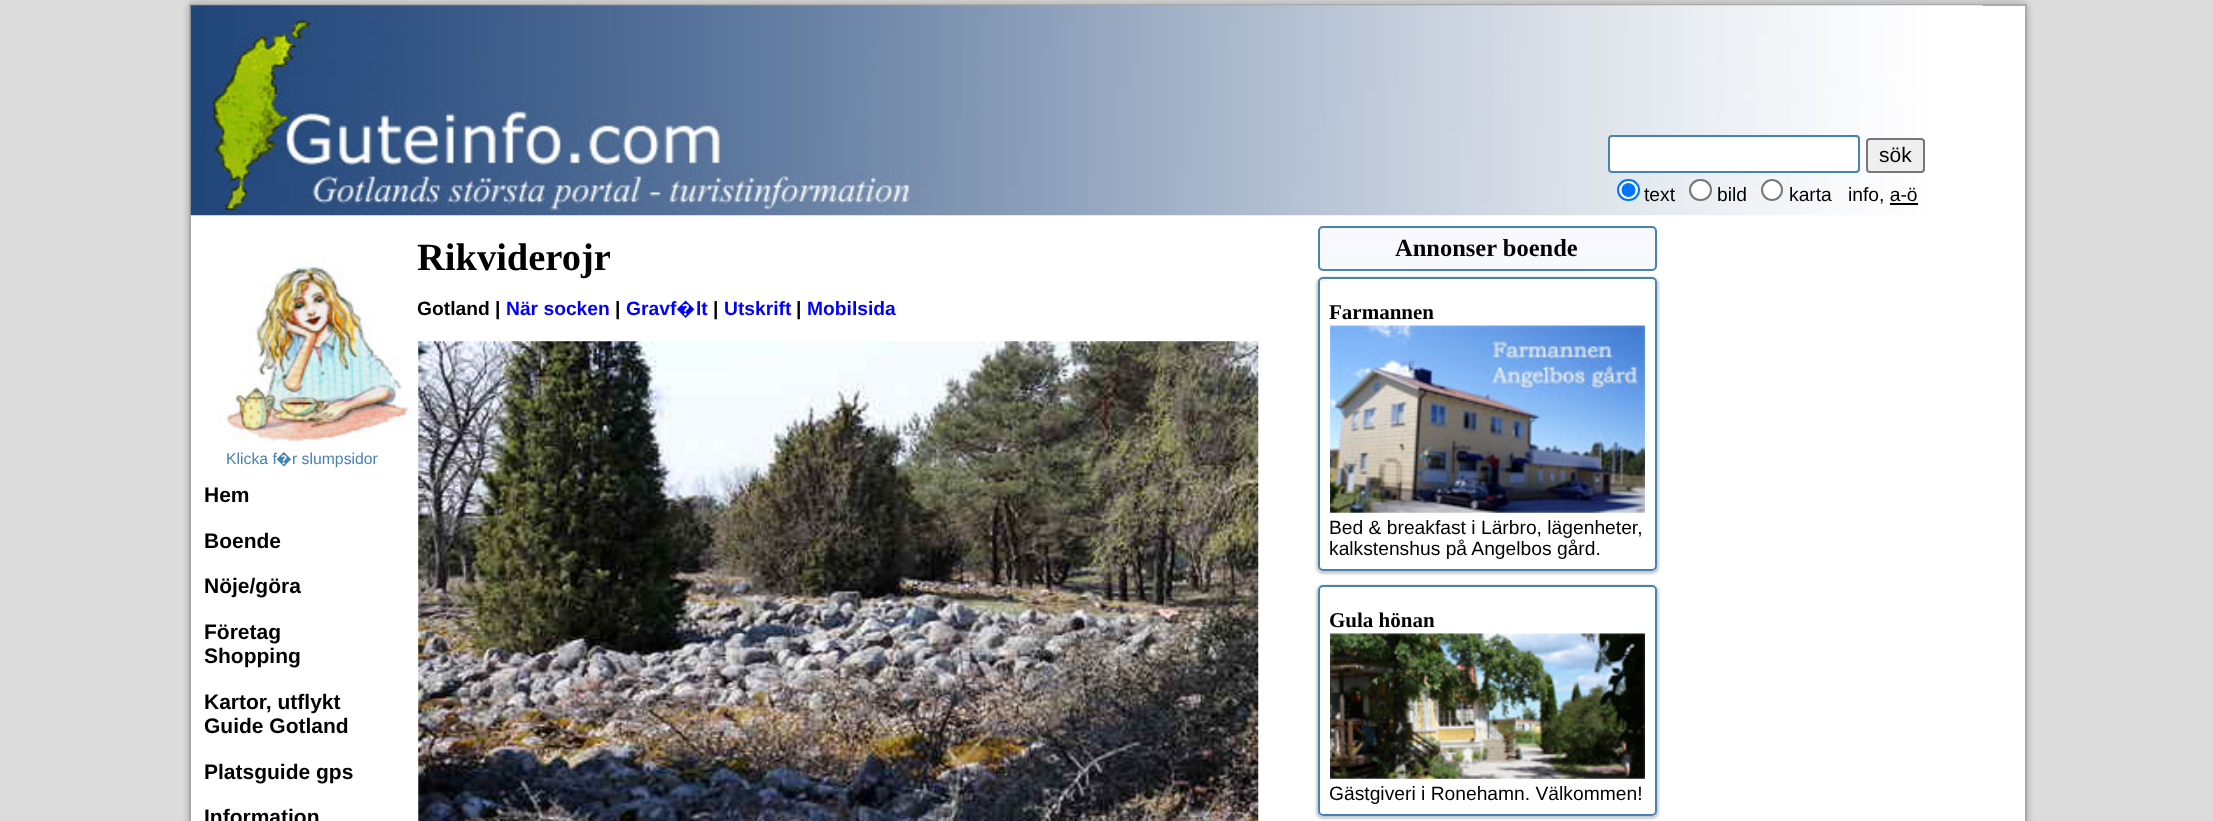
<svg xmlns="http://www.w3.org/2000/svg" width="2213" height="821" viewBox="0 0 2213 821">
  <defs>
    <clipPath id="clip1"><path d="M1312 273H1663V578H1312ZM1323 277H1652C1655 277 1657 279 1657 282V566C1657 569 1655 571 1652 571H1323C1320 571 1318 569 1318 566V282C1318 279 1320 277 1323 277Z" clip-rule="evenodd"/></clipPath>
    <clipPath id="clip2"><path d="M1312 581H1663V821H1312ZM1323 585H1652C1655 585 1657 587 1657 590V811C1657 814 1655 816 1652 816H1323C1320 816 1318 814 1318 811V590C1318 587 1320 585 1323 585Z" clip-rule="evenodd"/></clipPath>
  </defs>
  <rect width="100%" height="100%" fill="#dcdcdc"/>
  <rect x="186" width="1844" height="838" rx="11" fill="#c0c0c0" filter="blur(2px)"/>
  <path d="M191 6h1834v815H191z" fill="#fff"/>
  <path d="M189 4h1838v2H189z" fill="#a9a9a9"/>
  <path d="M2025 4h2v817H2025z" fill="#a9a9a9"/>
  <path d="M189 4h2v817H189z" fill="#a9a9a9"/>
  <image x="190" y="5" width="1793" height="211" href="img/1.png"/>
  <rect x="1609" y="136" width="250" height="36" rx="3" fill="#fff" stroke="#4682b4" stroke-width="2"/>
  <rect x="1867" y="139" width="57" height="33" rx="3" fill="#efefef" stroke="#767676" stroke-width="2"/>
  <rect x="1618" y="180" width="21" height="20" rx="10" fill="#fff" stroke="#0075ff" stroke-width="2"/>
  <circle cx="1628.5" cy="190" r="7" fill="#0075ff"/>
  <rect x="1690" y="180" width="21" height="20" rx="10" fill="#fff" stroke="#767676" stroke-width="2"/>
  <circle cx="1772" cy="190" r="10" fill="#fff" stroke="#767676" stroke-width="2"/>
  <path d="M1890 203h28v2H1890z" fill="#000"/>
  <image x="418" y="341" width="841" height="480" href="img/2.png"/>
  <rect x="1319" y="227" width="337" height="43" rx="4" fill="#f8f8ff" stroke="#4682b4" stroke-width="2"/>
  <g clip-path="url(#clip1)">
    <rect x="1316" y="277" width="343" height="297" rx="7" fill="#ccc" filter="blur(1px)"/>
  </g>
  <rect x="1319" y="278" width="337" height="292" rx="4" fill="none" stroke="#4682b4" stroke-width="2"/>
  <image x="1330" y="325" width="315" height="188" href="img/3.png"/>
  <g clip-path="url(#clip2)">
    <rect x="1316" y="585" width="343" height="234" rx="7" fill="#ccc" filter="blur(1px)"/>
  </g>
  <rect x="1319" y="586" width="337" height="229" rx="4" fill="none" stroke="#4682b4" stroke-width="2"/>
  <image x="1330" y="633" width="315" height="146" href="img/4.png"/>
  <image x="219" y="257" width="195" height="186" href="img/5.png"/>
  <text x="1879" y="162" font-family="Liberation Sans" font-size="21" fill="#000">sök</text>
  <g font-family="Liberation Sans" font-size="19.25" fill="#000">
    <text x="1644" y="201">text</text>
    <text x="1717" y="201">bild</text>
    <text x="1789" y="201">karta</text>
    <text x="1848" y="201">info, a-ö</text>
  </g>
  <text x="417" y="270" font-family="Liberation Serif" font-size="38.5" font-weight="bold" fill="#000">Rikviderojr</text>
  <text x="417" y="315" font-family="Liberation Sans" font-size="19.25" font-weight="bold" fill="#000">Gotland |</text>
  <text x="506" y="315" font-family="Liberation Sans" font-size="19.25" font-weight="bold" fill="#00f">När socken</text>
  <text x="615" y="315" font-family="Liberation Sans" font-size="19.25" font-weight="bold" fill="#000">|</text>
  <text x="626" y="315" font-family="Liberation Sans" font-size="19.25" font-weight="bold" fill="#00f">Gravf</text>
  <text x="676" y="315" font-family="Noto Sans" font-size="19.25" font-weight="bold" fill="#00f">�</text>
  <text x="696" y="315" font-family="Liberation Sans" font-size="19.25" font-weight="bold" fill="#00f">lt</text>
  <text x="713" y="315" font-family="Liberation Sans" font-size="19.25" font-weight="bold" fill="#000">|</text>
  <text x="724" y="315" font-family="Liberation Sans" font-size="19.25" font-weight="bold" fill="#00f">Utskrift</text>
  <text x="796" y="315" font-family="Liberation Sans" font-size="19.25" font-weight="bold" fill="#000">|</text>
  <text x="807" y="315" font-family="Liberation Sans" font-size="19.25" font-weight="bold" fill="#00f">Mobilsida</text>
  <text x="1395" y="256" font-family="Liberation Serif" font-size="24.5" font-weight="bold" fill="#000">Annonser boende</text>
  <text x="1329" y="319" font-family="Liberation Serif" font-size="21" font-weight="bold" fill="#000">Farmannen</text>
  <g font-family="Liberation Sans" font-size="19.25" fill="#000">
    <text x="1329" y="534">Bed &amp; breakfast i Lärbro, lägenheter,</text>
    <text x="1329" y="555">kalkstenshus på Angelbos gård.</text>
  </g>
  <text x="1329" y="627" font-family="Liberation Serif" font-size="21" font-weight="bold" fill="#000">Gula hönan</text>
  <text x="1329" y="800" font-family="Liberation Sans" font-size="19.25" fill="#000">Gästgiveri i Ronehamn. Välkommen!</text>
  <text x="226" y="464" font-family="Liberation Sans" font-size="15.75" fill="#4682b4">Klicka f</text>
  <text x="276" y="464" font-family="Noto Sans" font-size="15.75" fill="#4682b4">�</text>
  <text x="292" y="464" font-family="Liberation Sans" font-size="15.75" fill="#4682b4">r slumpsidor</text>
  <g font-family="Liberation Sans" font-size="21" font-weight="bold" fill="#000">
    <text x="204" y="502">Hem</text>
    <text x="204" y="548">Boende</text>
    <text x="204" y="593">Nöje/göra</text>
    <text x="204" y="639">Företag</text>
    <text x="204" y="663">Shopping</text>
    <text x="204" y="709">Kartor, utflykt</text>
    <text x="204" y="733">Guide Gotland</text>
    <text x="204" y="779">Platsguide gps</text>
    <text x="204" y="824">Information</text>
  </g>
</svg>
